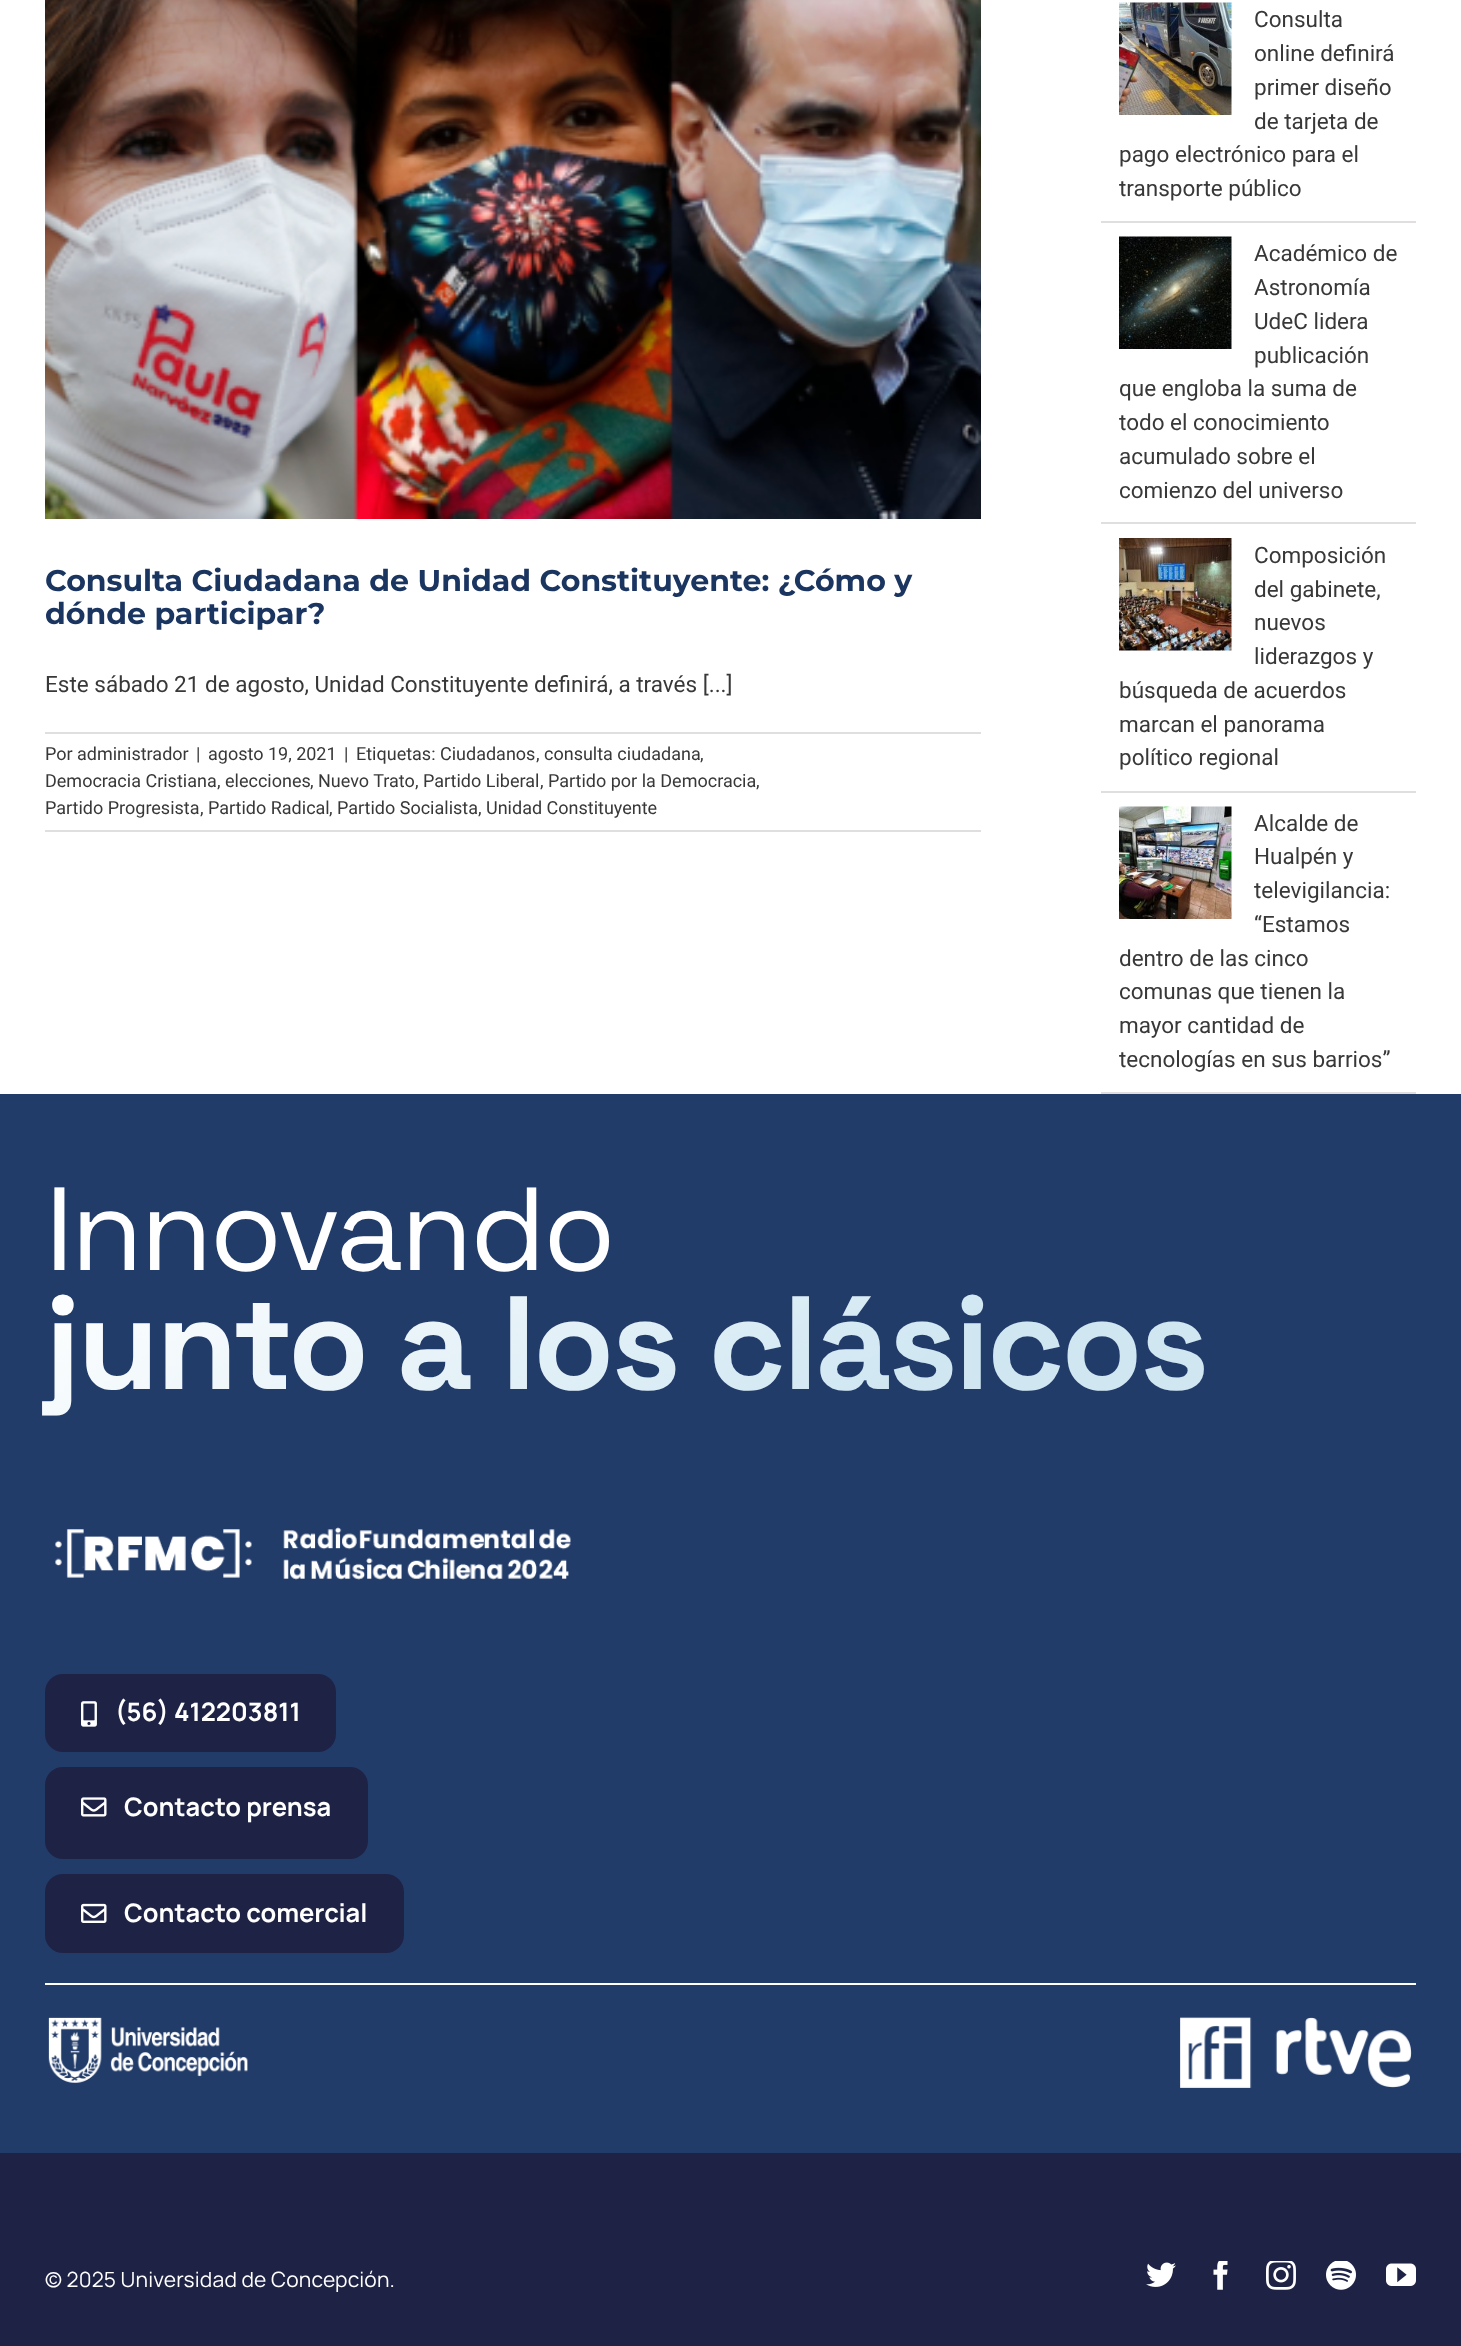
<svg xmlns="http://www.w3.org/2000/svg" width="1461" height="2346" viewBox="0 0 1461 2346">
  <defs>
    <linearGradient id="g1" gradientUnits="userSpaceOnUse" x1="508" y1="988" x2="953" y2="1700"><stop offset="0" stop-color="#fff"/><stop offset="0.64" stop-color="#d0e7f2"/></linearGradient>
  </defs>
  <rect width="100%" height="100%" fill="#fff"/>
  <image x="45" y="0" width="936" height="519" href="img/1.png"/>
  <path d="M45 732h936v2H45z" fill="#e0dede"/>
  <path d="M45 830h936v2H45z" fill="#e0dede"/>
  <path d="M1101 221h315v2H1101z" fill="#e0dede"/>
  <image x="1119" y="2" width="113" height="113" href="img/2.png"/>
  <path d="M1101 522h315v2H1101z" fill="#e0dede"/>
  <image x="1119" y="236" width="113" height="113" href="img/3.png"/>
  <path d="M1101 791h315v2H1101z" fill="#e0dede"/>
  <image x="1119" y="538" width="113" height="113" href="img/4.png"/>
  <path d="M1101 1092h315v2H1101z" fill="#e0dede"/>
  <image x="1119" y="806" width="113" height="113" href="img/5.png"/>
  <path d="M0 1094h1461v1059H0z" fill="#223c6a"/>
  <image x="55" y="1527" width="516" height="53" href="img/6.png"/>
  <rect x="45" y="1674" width="291" height="78" rx="18" fill="#1e2345"/>
  <image x="81" y="1701" width="16" height="26" href="img/7.png"/>
  <rect x="45" y="1767" width="323" height="92" rx="18" fill="#1e2345"/>
  <image x="81" y="1797" width="26" height="20" href="img/8.png"/>
  <rect x="45" y="1874" width="359" height="79" rx="18" fill="#1e2345"/>
  <image x="81" y="1903" width="26" height="20" href="img/9.png"/>
  <path d="M45 1983h1371v2H45z" fill="#fff"/>
  <image x="48" y="2017" width="200" height="66" href="img/10.png"/>
  <image x="1180" y="2017" width="232" height="71" href="img/11.png"/>
  <path d="M0 2153h1461v193H0z" fill="#1e2345"/>
  <image x="1146" y="2262" width="30" height="25" href="img/12.png"/>
  <image x="1213" y="2261" width="15" height="29" href="img/13.png"/>
  <image x="1266" y="2261" width="30" height="29" href="img/14.png"/>
  <image x="1326" y="2261" width="30" height="29" href="img/15.png"/>
  <image x="1386" y="2263" width="30" height="23" href="img/16.png"/>
  <g font-family="Montserrat" font-size="30" font-weight="bold" fill="#1b3561">
    <text x="45" y="591">Consulta Ciudadana de Unidad Constituyente: ¿Cómo y</text>
    <text x="45" y="624">dónde participar?</text>
  </g>
  <text x="45" y="692" font-family="Roboto" font-size="22.5" fill="#383838">Este sábado 21 de agosto, Unidad Constituyente definirá, a través [...]</text>
  <g font-family="Roboto" font-size="18" fill="#383838">
    <text x="45" y="760">Por</text>
    <text x="77" y="760">administrador</text>
    <text x="196" y="760">|</text>
    <text x="208" y="760">agosto 19, 2021</text>
    <text x="344" y="760">|</text>
    <text x="356" y="760">Etiquetas:</text>
    <text x="440" y="760">Ciudadanos</text>
    <text x="536" y="760">,</text>
    <text x="544" y="760">consulta ciudadana</text>
    <text x="700" y="760">,</text>
    <text x="45" y="787">Democracia Cristiana</text>
    <text x="217" y="787">,</text>
    <text x="225" y="787">elecciones</text>
    <text x="310" y="787">,</text>
    <text x="318" y="787">Nuevo Trato</text>
    <text x="415" y="787">,</text>
    <text x="423" y="787">Partido Liberal</text>
    <text x="540" y="787">,</text>
    <text x="548" y="787">Partido por la Democracia</text>
    <text x="756" y="787">,</text>
    <text x="45" y="814">Partido Progresista</text>
    <text x="200" y="814">,</text>
    <text x="208" y="814">Partido Radical</text>
    <text x="329" y="814">,</text>
    <text x="337" y="814">Partido Socialista</text>
    <text x="478" y="814">,</text>
    <text x="486" y="814">Unidad Constituyente</text>
  </g>
  <g font-family="Roboto" font-size="22.5" fill="#383838">
    <text x="1254" y="27">Consulta</text>
    <text x="1254" y="61">online definirá</text>
    <text x="1254" y="95">primer diseño</text>
    <text x="1254" y="129">de tarjeta de</text>
    <text x="1119" y="162">pago electrónico para el</text>
    <text x="1119" y="196">transporte público</text>
    <text x="1254" y="261">Académico de</text>
    <text x="1254" y="295">Astronomía</text>
    <text x="1254" y="329">UdeC lidera</text>
    <text x="1254" y="363">publicación</text>
    <text x="1119" y="396">que engloba la suma de</text>
    <text x="1119" y="430">todo el conocimiento</text>
    <text x="1119" y="464">acumulado sobre el</text>
    <text x="1119" y="498">comienzo del universo</text>
    <text x="1254" y="563">Composición</text>
    <text x="1254" y="597">del gabinete,</text>
    <text x="1254" y="630">nuevos</text>
    <text x="1254" y="664">liderazgos y</text>
    <text x="1119" y="698">búsqueda de acuerdos</text>
    <text x="1119" y="732">marcan el panorama</text>
    <text x="1119" y="765">político regional</text>
    <text x="1254" y="831">Alcalde de</text>
    <text x="1254" y="864">Hualpén y</text>
    <text x="1254" y="898">televigilancia:</text>
    <text x="1254" y="932">“Estamos</text>
    <text x="1119" y="966">dentro de las cinco</text>
    <text x="1119" y="999">comunas que tienen la</text>
    <text x="1119" y="1033">mayor cantidad de</text>
    <text x="1119" y="1067">tecnologías en sus barrios”</text>
  </g>
  <text x="45" y="1270" font-family="Space Grotesk" font-size="118" letter-spacing="-3" fill="#fff">Innovando</text>
  <text x="45" y="1389" font-family="Space Grotesk" font-size="132.5" font-weight="bold" letter-spacing="-3" fill="url(#g1)">junto a los clásicos</text>
  <g font-family="Manrope" font-size="25.5" font-weight="bold" fill="#fff">
    <text x="115" y="1721">(56) 412203811</text>
    <text x="124" y="1816">Contacto prensa</text>
    <text x="124" y="1922">Contacto comercial</text>
  </g>
  <text x="45" y="2287" font-family="Manrope" font-size="21" letter-spacing="0.2" fill="#fff">© 2025 Universidad de Concepción.</text>
</svg>
